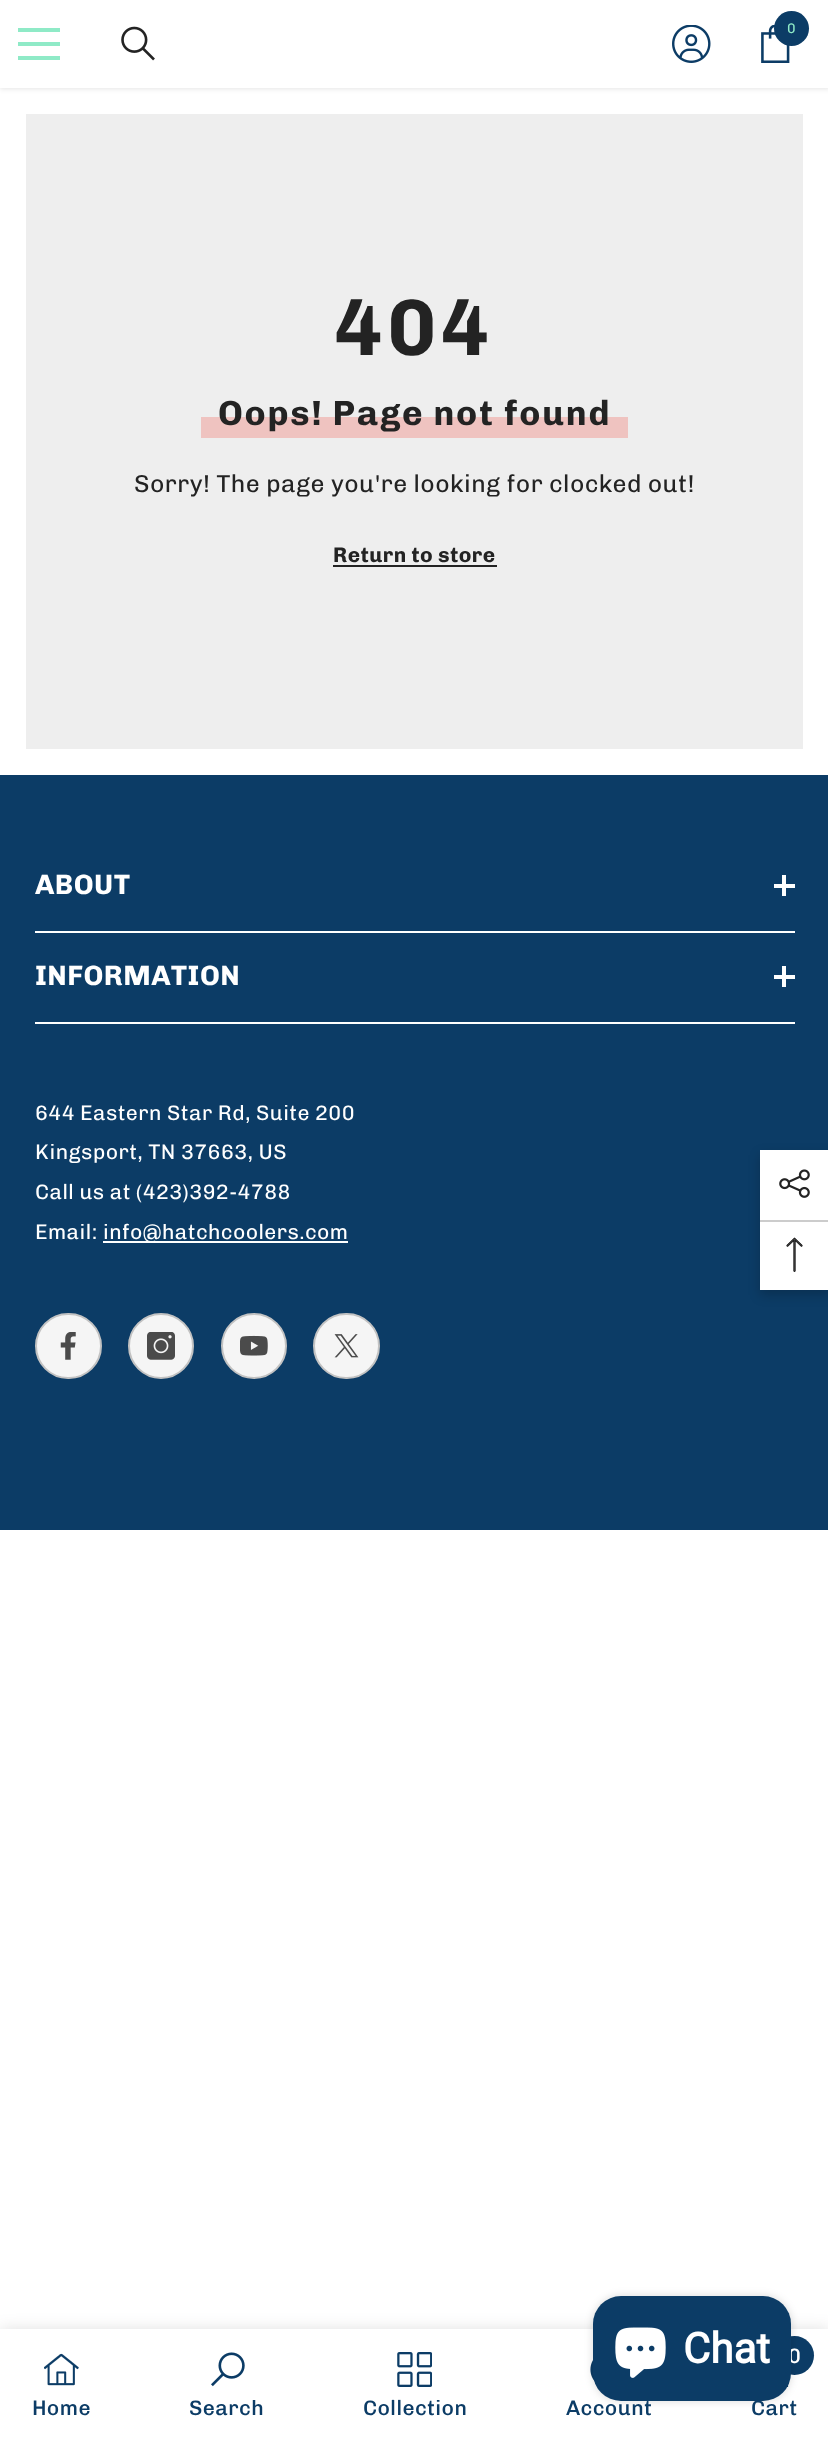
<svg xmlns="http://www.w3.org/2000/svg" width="828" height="2437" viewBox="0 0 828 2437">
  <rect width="100%" height="100%" fill="#fff"/>
  <path d="M0 2h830v87H0z" fill="#0000001a" filter="blur(2.5px)"/>
  <path d="M0 0h828v88H0z" fill="#fff"/>
  <path d="M18 42h42v4H18z" fill="#8feac7"/>
  <path d="M18 28h42v4H18z" fill="#8feac7"/>
  <path d="M18 56h42v4H18z" fill="#8feac7"/>
  <image x="121" y="26" width="34" height="35" href="img/1.png"/>
  <image x="672" y="25" width="39" height="38" href="img/2.png"/>
  <image x="761" y="25" width="29" height="38" href="img/3.png"/>
  <circle cx="791.5" cy="28.5" r="17.5" fill="#0c3c66"/>
  <path d="M26 114h777v635H26z" fill="#eee"/>
  <path d="M201 417h427v21H201z" fill="#efc3c0"/>
  <path d="M333 565h164v2H333z" fill="#232323"/>
  <path d="M0 775h828v755H0z" fill="#0c3c66"/>
  <path d="M35 931h760v2H35z" fill="#fff"/>
  <path d="M782 875h4v21H782z" fill="#fff"/>
  <path d="M774 884h21v4H774z" fill="#fff"/>
  <path d="M35 1022h760v2H35z" fill="#fff"/>
  <path d="M782 966h4v21H782z" fill="#fff"/>
  <path d="M774 975h21v4H774z" fill="#fff"/>
  <path d="M103 1241h245v2H103z" fill="#fff"/>
  <rect x="36" y="1314" width="65" height="64" rx="32" fill="#f5f5f5" stroke="#c2c2c2" stroke-width="2"/>
  <image x="60" y="1332" width="16" height="28" href="img/4.png"/>
  <circle cx="161" cy="1346" r="32" fill="#f5f5f5" stroke="#c2c2c2" stroke-width="2"/>
  <image x="147" y="1332" width="28" height="28" href="img/5.png"/>
  <circle cx="254" cy="1346" r="32" fill="#f5f5f5" stroke="#c2c2c2" stroke-width="2"/>
  <image x="240" y="1335" width="28" height="21" href="img/6.png"/>
  <rect x="314" y="1314" width="65" height="64" rx="32" fill="#f5f5f5" stroke="#c2c2c2" stroke-width="2"/>
  <image x="334" y="1334" width="25" height="24" href="img/7.png"/>
  <path d="M0 2329h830v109H0z" fill="#0000001f" filter="blur(8px)"/>
  <path d="M0 2329h828v108H0z" fill="#fff"/>
  <image x="44" y="2353" width="35" height="33" href="img/8.png"/>
  <image x="211" y="2352" width="34" height="35" href="img/9.png"/>
  <image x="397" y="2352" width="35" height="35" href="img/10.png"/>
  <image x="590" y="2360" width="5" height="22" href="img/11.png"/>
  <circle cx="794.5" cy="2355.5" r="19.5" fill="#0c3c66"/>
  <image x="787" y="2383" width="2" height="4" href="img/12.png"/>
  <path d="M760 1155h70v140H760z" fill="#00000033" filter="blur(6px)"/>
  <path d="M760 1150h68v140H760z" fill="#fff"/>
  <image x="779" y="1169" width="31" height="29" href="img/13.png"/>
  <path d="M760 1220h68v2H760z" fill="#ccc"/>
  <image x="786" y="1237" width="17" height="35" href="img/14.png"/>
  <rect x="593" y="2296" width="198" height="105" rx="28" fill="#00000026" filter="blur(4.5px)"/>
  <text x="787" y="33" font-family="Chivo" font-size="14" fill="#8feac7">0</text>
  <text x="334" y="355" font-family="Chivo" font-size="80" font-weight="bold" letter-spacing="4" fill="#232323">404</text>
  <text x="218" y="425" font-family="Chivo" font-size="35" font-weight="bold" letter-spacing="1.75" fill="#232323">Oops! Page not found</text>
  <text x="134" y="492" font-family="Chivo" font-size="24.5" letter-spacing="0.4" fill="#232323">Sorry! The page you're looking for clocked out!</text>
  <text x="333" y="562" font-family="Chivo" font-size="21" font-weight="bold" letter-spacing="0.4" fill="#232323">Return to store</text>
  <g font-family="Chivo" font-size="28" font-weight="bold" letter-spacing="0.5" fill="#fff">
    <text x="35" y="894">ABOUT</text>
    <text x="35" y="985">INFORMATION</text>
  </g>
  <g font-family="Chivo" font-size="21" letter-spacing="0.4" fill="#fff">
    <text x="35" y="1120">644 Eastern Star Rd, Suite 200</text>
    <text x="35" y="1159">Kingsport, TN 37663, US</text>
    <text x="35" y="1199">Call us at (423)392-4788</text>
    <text x="35" y="1239">Email:</text>
    <text x="103" y="1239">info@hatchcoolers.com</text>
  </g>
  <g font-family="Chivo" font-size="21" font-weight="500" letter-spacing="0.4" fill="#0c3c66">
    <text x="32" y="2415">Home</text>
    <text x="189" y="2415">Search</text>
    <text x="363" y="2415">Collection</text>
    <text x="566" y="2415">Account</text>
  </g>
  <text x="788" y="2363" font-family="Chivo" font-size="21" font-weight="500" fill="#fff">0</text>
  <text x="751" y="2415" font-family="Chivo" font-size="21" font-weight="500" letter-spacing="0.4" fill="#0c3c66">Cart</text>
  <rect x="593" y="2296" width="198" height="105" rx="28" fill="#0c3c66"/>
  <image x="615" y="2327" width="51" height="51" href="img/15.png"/>
  <text x="683" y="2363" font-family="Roboto" font-size="42" font-weight="bold" fill="#fff">Chat</text>
</svg>
